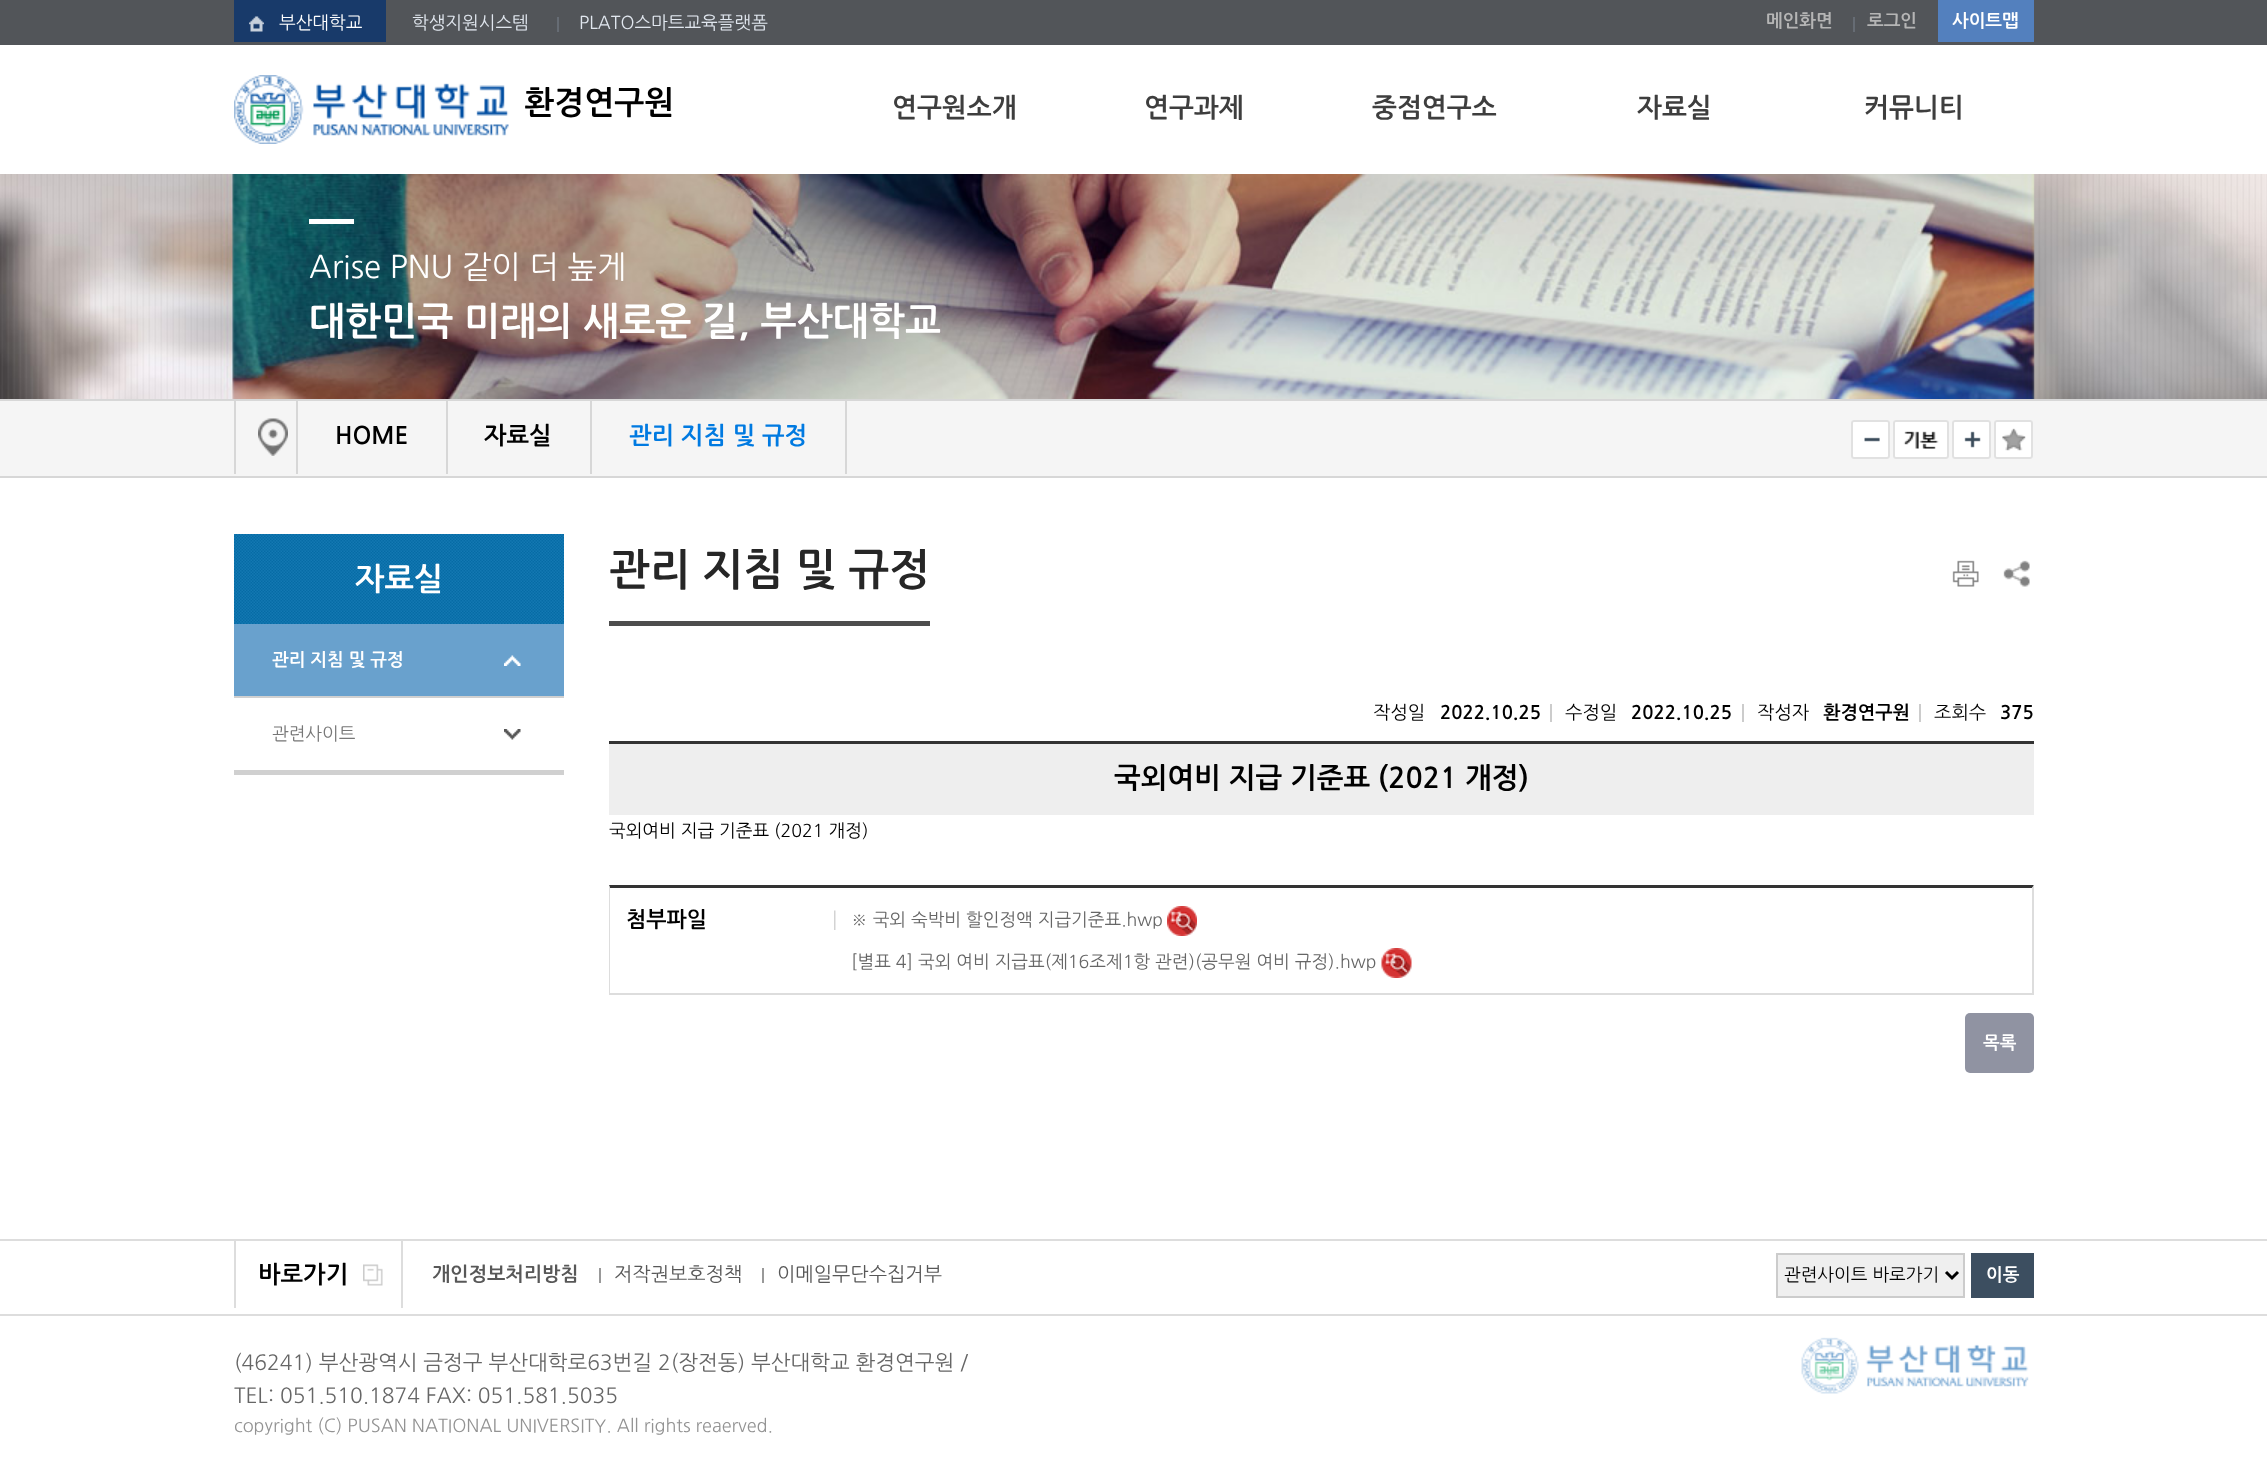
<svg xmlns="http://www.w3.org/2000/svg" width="2267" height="1471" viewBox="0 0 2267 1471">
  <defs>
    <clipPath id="clip1"><path d="M609 549h1425v102H609z"/></clipPath>
  </defs>
  <rect width="100%" height="100%" fill="#fff"/>
  <path d="M0 0h2267v45H0z" fill="#525559"/>
  <path d="M234 0h152v42H234z" fill="#183a6a"/>
  <image x="249" y="16" width="15" height="16" href="img/1.png"/>
  <path d="M557 17h2v15H557z" fill="#666c74"/>
  <path d="M1853 17h2v15H1853z" fill="#666c74"/>
  <path d="M1938 0h96v42H1938z" fill="#5380be"/>
  <image x="234" y="75" width="275" height="69" href="img/2.png"/>
  <image x="0" y="174" width="2267" height="225" href="img/3.png"/>
  <path d="M309 219h45v5H309z" fill="#fff"/>
  <path d="M0 401h2267v75H0z" fill="#f5f5f5"/>
  <path d="M0 399h2267v2H0z" fill="#d7d7d7"/>
  <path d="M0 476h2267v2H0z" fill="#d7d7d7"/>
  <image x="258" y="418" width="30" height="38" href="img/4.png"/>
  <path d="M845 399h2v75H845z" fill="#d7d7d7"/>
  <path d="M234 399h2v75H234z" fill="#d7d7d7"/>
  <path d="M296 399h2v75H296z" fill="#d7d7d7"/>
  <path d="M446 399h2v75H446z" fill="#d7d7d7"/>
  <path d="M590 399h2v75H590z" fill="#d7d7d7"/>
  <rect x="1851" y="420" width="39" height="39" rx="3" fill="#fff"/>
  <image x="1864" y="437" width="16" height="5" href="img/5.png"/>
  <rect x="1852" y="421" width="37" height="37" rx="2" fill="none" stroke="#e1e1e1" stroke-width="2"/>
  <rect x="1893" y="420" width="56" height="39" rx="3" fill="#fff"/>
  <image x="1903" y="431" width="36" height="18" href="img/6.png"/>
  <rect x="1894" y="421" width="54" height="37" rx="2" fill="none" stroke="#e1e1e1" stroke-width="2"/>
  <rect x="1952" y="420" width="39" height="39" rx="3" fill="#fff"/>
  <image x="1964" y="431" width="17" height="17" href="img/7.png"/>
  <rect x="1953" y="421" width="37" height="37" rx="2" fill="none" stroke="#e1e1e1" stroke-width="2"/>
  <rect x="1994" y="420" width="39" height="39" rx="3" fill="#fff"/>
  <image x="2002" y="428" width="24" height="23" href="img/8.png"/>
  <rect x="1995" y="421" width="37" height="37" rx="2" fill="none" stroke="#e1e1e1" stroke-width="2"/>
  <image x="1952" y="560" width="27" height="27" href="img/9.png"/>
  <image x="2003" y="560" width="27" height="27" href="img/10.png"/>
  <path d="M234 534h330v90H234z" fill="#0071b2"/>
  <image x="234" y="534" width="330" height="90" href="img/11.png"/>
  <path d="M234 770h330v5H234z" fill="#d0d0d0"/>
  <path d="M234 624h330v72H234z" fill="#69a1cd"/>
  <image x="504" y="655" width="17" height="11" href="img/12.png"/>
  <image x="504" y="729" width="17" height="11" href="img/13.png"/>
  <path d="M234 696h330v2H234z" fill="#d0d0d0"/>
  <path d="M609 621h321v5H609z" fill="#4d4d4d"/>
  <path d="M1550 704h2v18H1550z" fill="#ccc"/>
  <path d="M1742 704h2v18H1742z" fill="#ccc"/>
  <path d="M1919 704h2v18H1919z" fill="#ccc"/>
  <path d="M609 744h1425v71H609z" fill="#eee"/>
  <path d="M609 741h1425v3H609z" fill="#333"/>
  <path d="M609 885H2034L2032 888H610Z" fill="#333"/>
  <path d="M2034 885V994L2032 993V888Z" fill="#ddd"/>
  <path d="M609 993h1425v2H609z" fill="#ddd"/>
  <path d="M609 994V885L610 888V993Z" fill="#ddd"/>
  <image x="834" y="910" width="2" height="20" href="img/14.png"/>
  <image x="1167" y="906" width="30" height="30" href="img/15.png"/>
  <image x="1381" y="948" width="31" height="30" href="img/16.png"/>
  <rect x="1965" y="1013" width="69" height="60" rx="5" fill="#9093a2"/>
  <path d="M0 1239h2267v2H0z" fill="#ddd"/>
  <path d="M0 1314h2267v2H0z" fill="#ddd"/>
  <image x="363" y="1264" width="20" height="22" href="img/17.png"/>
  <path d="M401 1241h2v67H401z" fill="#ddd"/>
  <path d="M234 1241h2v67H234z" fill="#ddd"/>
  <path d="M599 1268h2v15H599z" fill="#999"/>
  <path d="M762 1268h2v15H762z" fill="#999"/>
  <path d="M1777 1254h187v43H1777z" fill="#efefef" stroke="#ccc" stroke-width="2"/>
  <path d="M1946 1272L1952 1278L1958 1272" fill="none" stroke="#000" stroke-width="3"/>
  <path d="M1971 1253h63v45H1971z" fill="#3c4e60"/>
  <image x="1801" y="1337" width="228" height="57" href="img/18.png"/>
  <text x="279" y="29" font-family="NanumGothic" font-size="17.75" fill="#fff">부산대학교</text>
  <g font-family="NanumGothic" font-size="17.75" fill="#e1e7ef">
    <text x="412" y="29">학생지원시스템</text>
    <text x="579" y="29">PLATO스마트교육플랫폼</text>
  </g>
  <g font-family="NanumGothic" font-size="17.75" font-weight="bold" fill="#b5b5b5">
    <text x="1766" y="27">메인화면</text>
    <text x="1867" y="27">로그인</text>
  </g>
  <text x="1952" y="27" font-family="NanumGothic" font-size="17.75" font-weight="bold" fill="#fff">사이트맵</text>
  <g font-family="NanumGothic" font-size="26.5" font-weight="bold" fill="#3e3e3e">
    <text x="892" y="117">연구원소개</text>
    <text x="1144" y="117">연구과제</text>
    <text x="1372" y="117">중점연구소</text>
    <text x="1637" y="117">자료실</text>
    <text x="1864" y="117">커뮤니티</text>
  </g>
  <text x="524" y="114" font-family="NanumGothic" font-size="32" font-weight="bold" fill="#000">환경연구원</text>
  <text x="309" y="278" font-family="NanumGothic" font-size="31.25" fill="#fff">Arise PNU 같이 더 높게</text>
  <text x="309" y="335" font-family="NanumGothic" font-size="38.4" font-weight="bold" fill="#fff">대한민국 미래의 새로운 길, 부산대학교</text>
  <g font-family="NanumGothic" font-size="24" font-weight="bold" fill="#000">
    <text x="335" y="444">HOME</text>
    <text x="484" y="444">자료실</text>
  </g>
  <text x="629" y="444" font-family="NanumGothic" font-size="24" font-weight="bold" fill="#007ae1">관리 지침 및 규정</text>
  <text x="355" y="590" font-family="NanumGothic" font-size="31.25" font-weight="bold" fill="#fff">자료실</text>
  <text x="272" y="666" font-family="NanumGothic" font-size="17.75" font-weight="bold" fill="#fff">관리 지침 및 규정</text>
  <text x="272" y="740" font-family="NanumGothic" font-size="17.75" fill="#777">관련사이트</text>
  <g clip-path="url(#clip1)">
    <text x="609" y="585" font-family="NanumGothic" font-size="43.25" font-weight="bold" fill="#262626">관리 지침 및 규정</text>
  </g>
  <text x="1373" y="719" font-family="NanumGothic" font-size="18.5" fill="#000">작성일</text>
  <text x="1440" y="719" font-family="NanumGothic" font-size="18.5" font-weight="bold" fill="#000">2022.10.25</text>
  <text x="1565" y="719" font-family="NanumGothic" font-size="18.5" fill="#000">수정일</text>
  <text x="1631" y="719" font-family="NanumGothic" font-size="18.5" font-weight="bold" fill="#000">2022.10.25</text>
  <text x="1757" y="719" font-family="NanumGothic" font-size="18.5" fill="#000">작성자</text>
  <text x="1823" y="719" font-family="NanumGothic" font-size="18.5" font-weight="bold" fill="#000">환경연구원</text>
  <text x="1934" y="719" font-family="NanumGothic" font-size="18.5" fill="#000">조회수</text>
  <text x="2000" y="719" font-family="NanumGothic" font-size="18.5" font-weight="bold" fill="#000">375</text>
  <text x="1114" y="788" font-family="NanumGothic" font-size="28.4" font-weight="bold" fill="#000">국외여비 지급 기준표 (2021 개정)</text>
  <text x="609" y="837" font-family="NanumGothic" font-size="17.75" fill="#000">국외여비 지급 기준표 (2021 개정)</text>
  <text x="626" y="927" font-family="NanumGothic" font-size="21.5" font-weight="bold" fill="#000">첨부파일</text>
  <g font-family="NanumGothic" font-size="17.75" fill="#666">
    <text x="851" y="926">※ 국외 숙박비 할인정액 지급기준표.hwp</text>
    <text x="851" y="968">[별표 4] 국외 여비 지급표(제16조제1항 관련)(공무원 여비 규정).hwp</text>
  </g>
  <text x="1983" y="1049" font-family="NanumGothic" font-size="17.75" font-weight="bold" fill="#fff">목록</text>
  <text x="258" y="1283" font-family="NanumGothic" font-size="24" font-weight="bold" fill="#000">바로가기</text>
  <text x="432" y="1281" font-family="NanumGothic" font-size="19.5" font-weight="bold" fill="#585858">개인정보처리방침</text>
  <g font-family="NanumGothic" font-size="19.5" fill="#585858">
    <text x="614" y="1281">저작권보호정책</text>
    <text x="777" y="1281">이메일무단수집거부</text>
  </g>
  <text x="1784" y="1281" font-family="NanumGothic" font-size="17.75" fill="#000">관련사이트 바로가기</text>
  <text x="1986" y="1281" font-family="NanumGothic" font-size="17.75" font-weight="bold" fill="#fff">이동</text>
  <g font-family="NanumGothic" font-size="21" fill="#666">
    <text x="234" y="1370">(46241) 부산광역시 금정구 부산대학로63번길 2(장전동) 부산대학교 환경연구원 /</text>
    <text x="234" y="1403">TEL: 051.510.1874 FAX: 051.581.5035</text>
  </g>
  <text x="234" y="1432" font-family="NanumGothic" font-size="18" fill="#939393">copyright (C) PUSAN NATIONAL UNIVERSITY. All rights reaerved.</text>
</svg>
